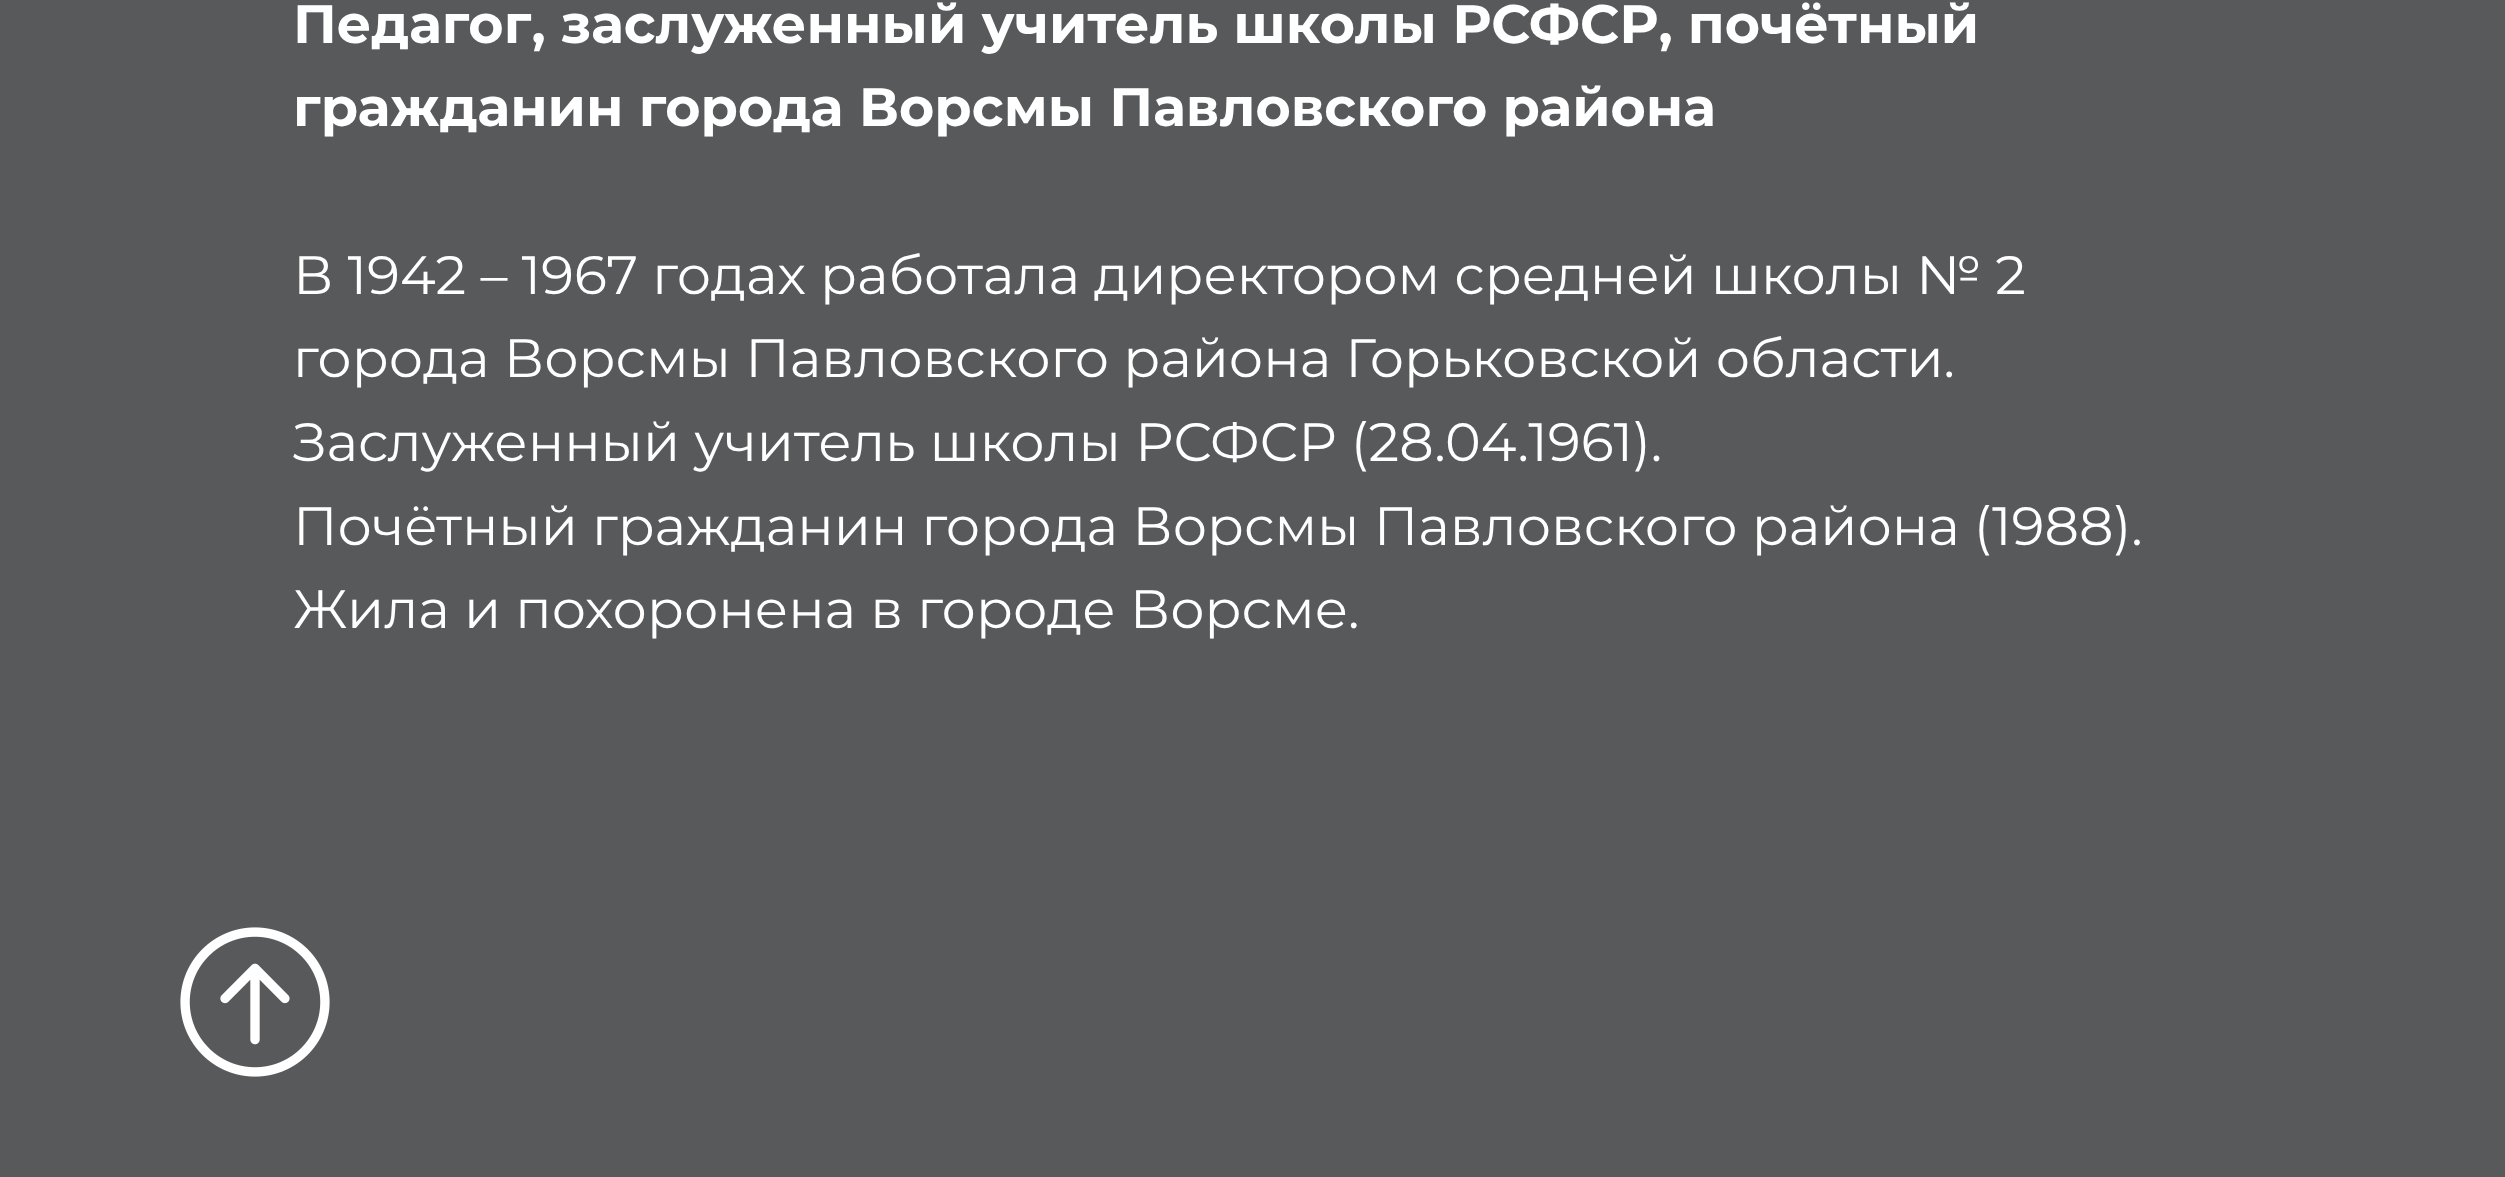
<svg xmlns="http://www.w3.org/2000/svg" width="2505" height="1177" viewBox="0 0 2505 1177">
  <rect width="100%" height="100%" fill="#58595b"/>
  <image x="180" y="927" width="150" height="150" href="img/1.png"/>
  <g font-family="Montserrat" font-size="54" font-weight="bold" fill="#fff">
    <text x="293" y="43">Педагог, заслуженный учитель школы РСФСР, почётный</text>
    <text x="293" y="126">гражданин города Ворсмы Павловского района</text>
  </g>
  <g font-family="Montserrat" font-size="54" fill="#fff">
    <text x="293" y="294">В 1942 – 1967 годах работала директором средней школы № 2</text>
    <text x="293" y="377">города Ворсмы Павловского района Горьковской области.</text>
    <text x="293" y="461">Заслуженный учитель школы РСФСР (28.04.1961).</text>
    <text x="293" y="545">Почётный гражданин города Ворсмы Павловского района (1988).</text>
    <text x="293" y="628">Жила и похоронена в городе Ворсме.</text>
  </g>
</svg>
